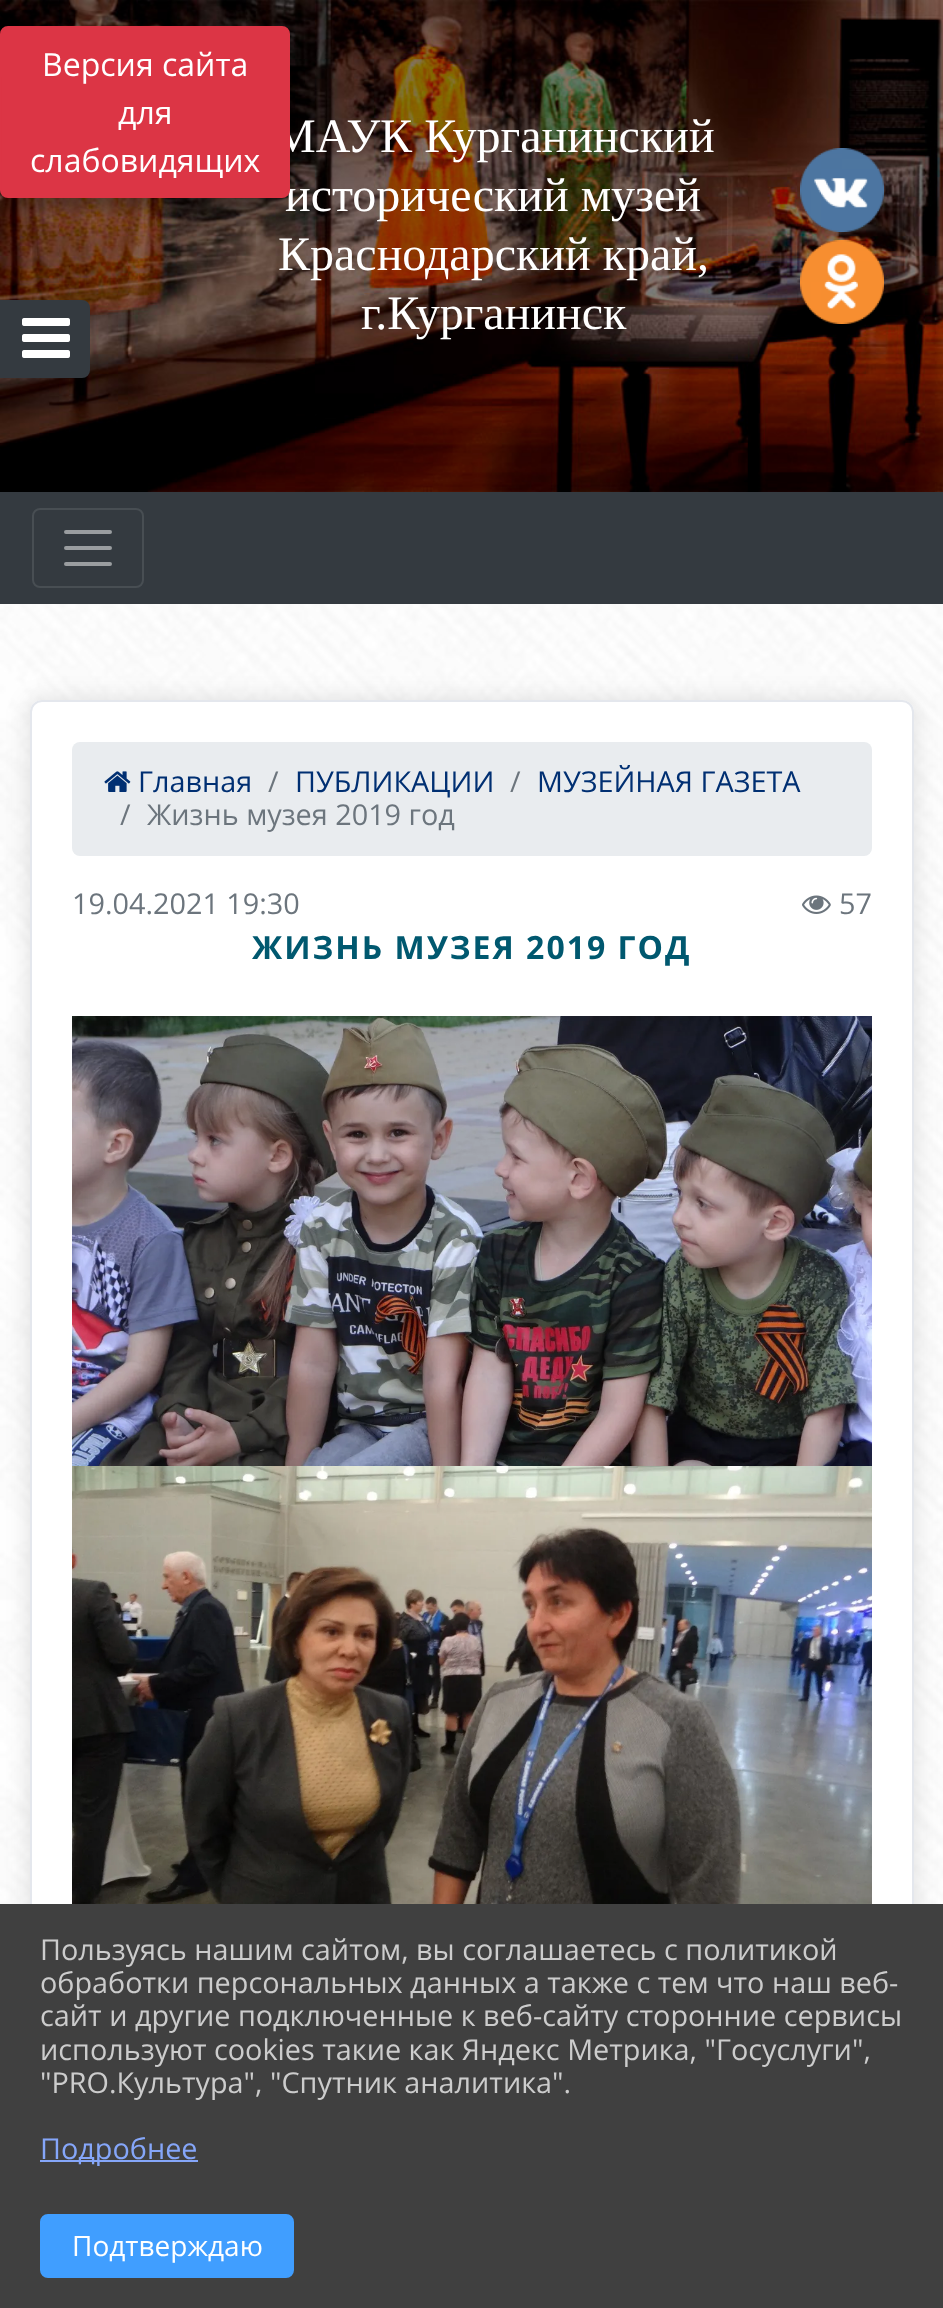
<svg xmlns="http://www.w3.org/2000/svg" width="943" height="2308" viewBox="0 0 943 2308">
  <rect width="100%" height="100%" fill="#fff"/>
  <image x="0" y="604" width="943" height="1300" href="img/1.png"/>
  <image x="0" y="0" width="943" height="492" href="img/3.png"/>
  <rect x="-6" y="40" width="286" height="168" rx="6" fill="#00000059" filter="blur(8px)"/>
  <path d="M1 301H82C86 301 89 304 89 308V370C89 374 86 377 82 377H1Z" fill="#343a40" stroke="#343a40" stroke-width="2"/>
  <image x="22" y="318" width="48" height="40" href="img/2.png"/>
  <image x="800" y="148" width="84" height="84" href="img/4.png"/>
  <image x="800" y="240" width="84" height="84" href="img/5.png"/>
  <path d="M0 492h943v112H0z" fill="#343a40"/>
  <rect x="33" y="509" width="110" height="78" rx="7" fill="none" stroke="#484e53" stroke-width="2"/>
  <path d="M66 532H110M66 548H110M66 564H110" fill="none" stroke="#9a9da0" stroke-width="4" stroke-linecap="round"/>
  <rect x="30" y="700" width="884" height="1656" rx="12" fill="#0000001f" filter="blur(12px)"/>
  <path d="M42 700H902C908.5 700 914 705.5 914 712V2308H30V712C30 705.5 35.5 700 42 700Z" fill="#fff"/>
  <rect x="31" y="701" width="882" height="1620" rx="11" fill="none" stroke="#e4e7ed" stroke-width="2"/>
  <rect x="72" y="742" width="800" height="114" rx="8" fill="#e9ecef"/>
  <image x="104" y="771" width="27" height="21" href="img/6.png"/>
  <image x="802" y="895" width="29" height="19" href="img/7.png"/>
  <image x="72" y="1016" width="800" height="450" href="img/8.png"/>
  <image x="72" y="1466" width="800" height="438" href="img/9.png"/>
  <path d="M0 1904h943v404H0z" fill="#404040"/>
  <path d="M40 2160h158v2H40z" fill="#85a6f9"/>
  <rect x="41" y="2215" width="252" height="62" rx="7" fill="#409eff" stroke="#409eff" stroke-width="2"/>
  <g font-family="Liberation Serif" font-size="48" fill="#fff">
    <text x="273" y="152">МАУК Курганинский</text>
    <text x="285" y="211">исторический музей</text>
  </g>
  <rect x="1" y="27" width="288" height="170" rx="7" fill="#dc3545" stroke="#dc3545" stroke-width="2"/>
  <g font-family="Open Sans" font-size="32" fill="#fff">
    <text x="30" y="172">слабовидящих</text>
    <text x="118" y="124">для</text>
    <text x="42" y="76">Версия сайта</text>
  </g>
  <g font-family="Liberation Serif" font-size="48" fill="#fff">
    <text x="278" y="270">Краснодарский край,</text>
    <text x="361" y="329">г.Курганинск</text>
  </g>
  <text x="138" y="792" font-family="Open Sans" font-size="28.8" fill="#002f72">Главная</text>
  <text x="268" y="792" font-family="Open Sans" font-size="28.8" fill="#6c757d">/</text>
  <text x="295" y="792" font-family="Open Sans" font-size="28.8" fill="#002f72">ПУБЛИКАЦИИ</text>
  <text x="510" y="792" font-family="Open Sans" font-size="28.8" fill="#6c757d">/</text>
  <text x="537" y="792" font-family="Open Sans" font-size="28.8" fill="#002f72">МУЗЕЙНАЯ ГАЗЕТА</text>
  <g font-family="Open Sans" font-size="28.8" fill="#6c757d">
    <text x="120" y="825">/</text>
    <text x="147" y="825">Жизнь музея 2019 год</text>
    <text x="72" y="914">19.04.2021 19:30</text>
    <text x="839" y="914">57</text>
  </g>
  <text x="252" y="959" font-family="Open Sans" font-size="32" font-weight="bold" letter-spacing="2" fill="#00586f">ЖИЗНЬ МУЗЕЯ 2019 ГОД</text>
  <g font-family="Open Sans" font-size="28.8" fill="#ccc">
    <text x="40" y="1960">Пользуясь нашим сайтом, вы соглашаетесь с политикой</text>
    <text x="40" y="1993">обработки персональных данных а также с тем что наш веб-</text>
    <text x="40" y="2026">сайт и другие подключенные к веб-сайту сторонние сервисы</text>
    <text x="40" y="2060">используют cookies такие как Яндекс Метрика, "Госуслуги",</text>
    <text x="40" y="2093">"PRO.Культура", "Спутник аналитика".</text>
  </g>
  <text x="40" y="2159" font-family="Open Sans" font-size="28.8" fill="#85a6f9">Подробнее</text>
  <text x="72" y="2256" font-family="Open Sans" font-size="28" fill="#fff">Подтверждаю</text>
</svg>
